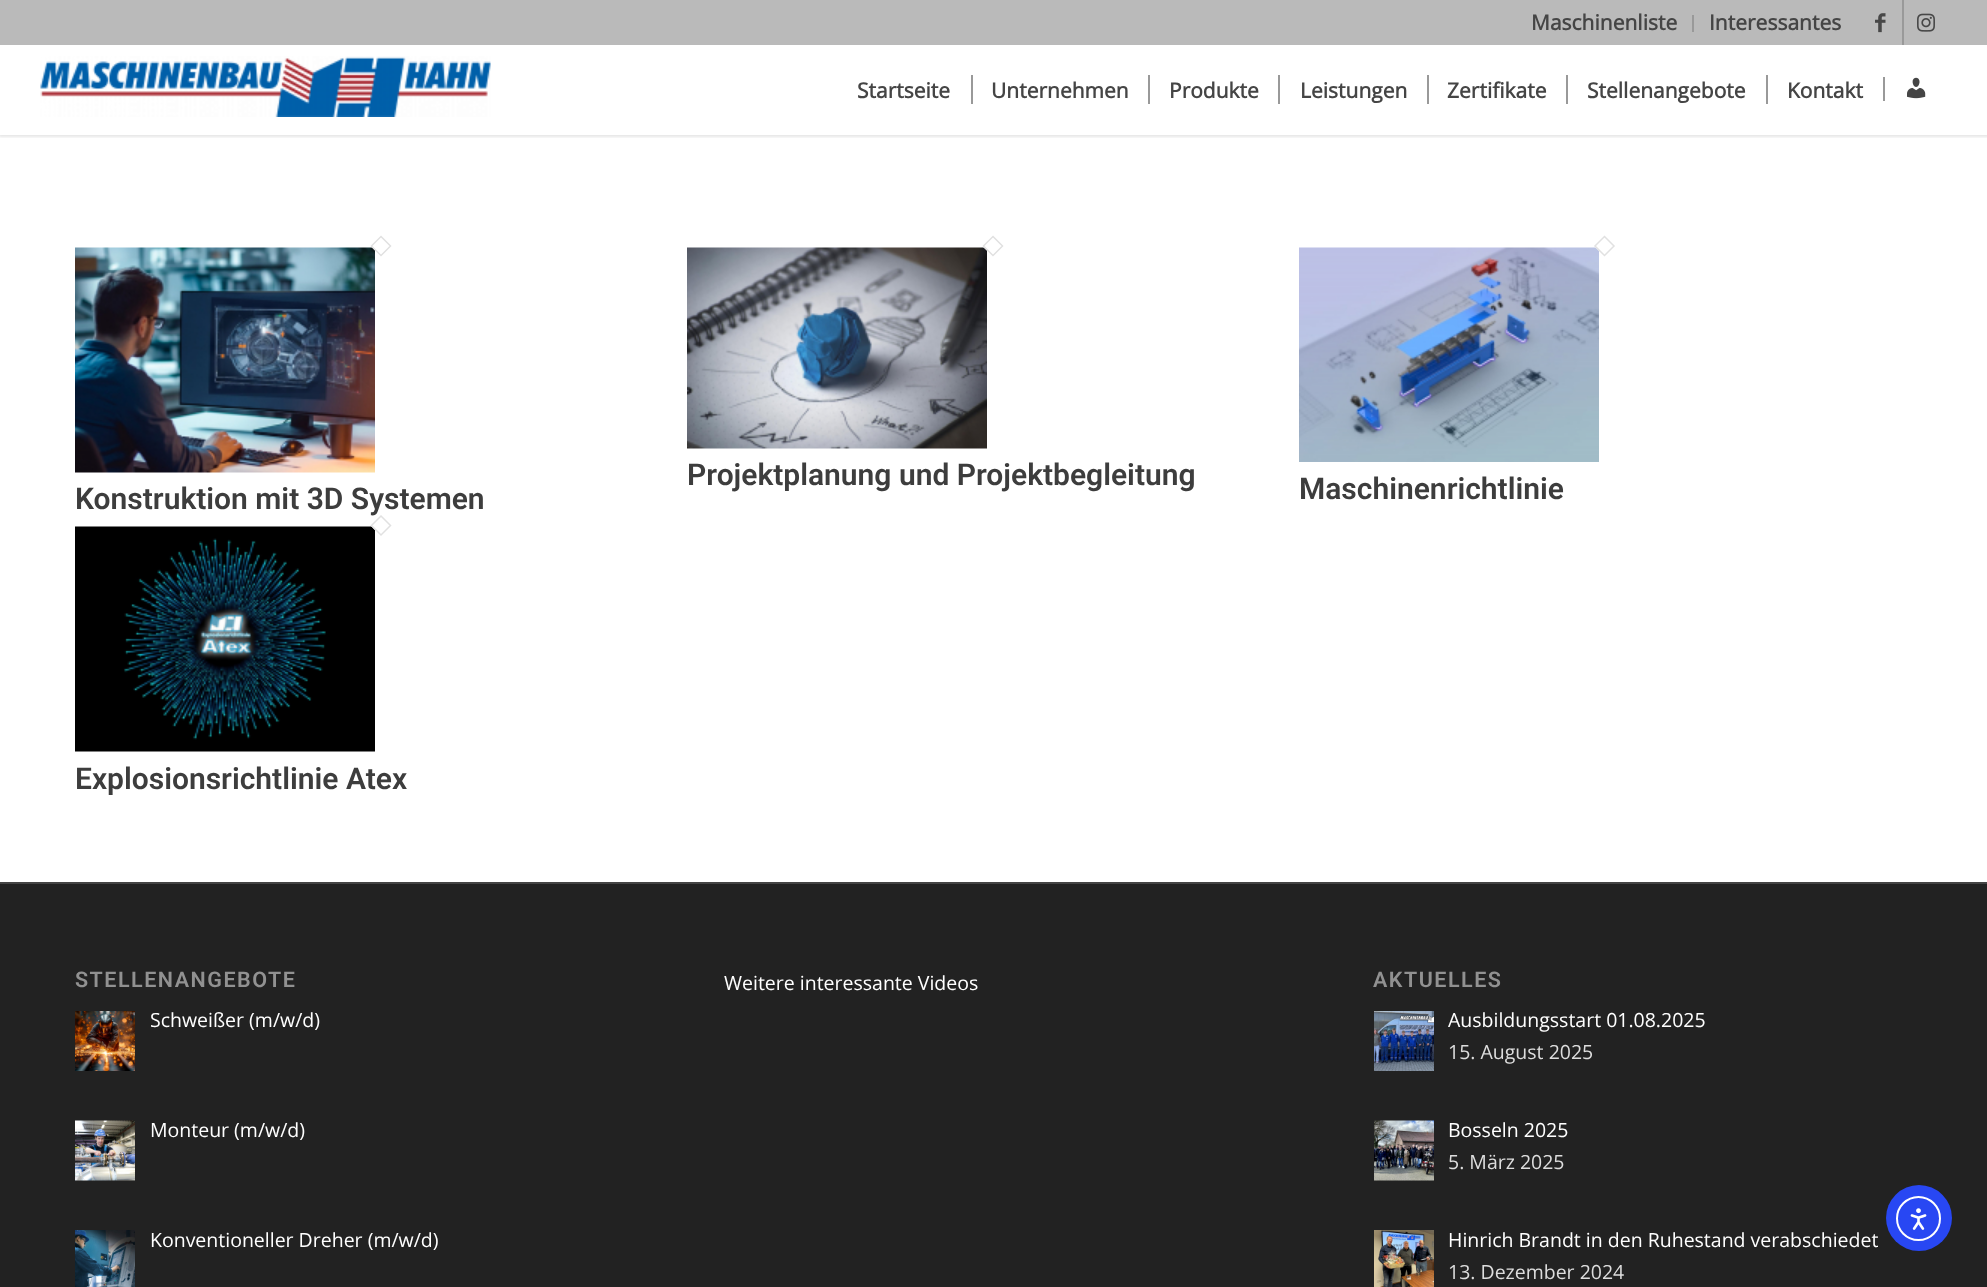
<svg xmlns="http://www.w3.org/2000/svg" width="1987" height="1287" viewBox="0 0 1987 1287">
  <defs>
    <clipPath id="clip1"><path d="M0 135h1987v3H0z"/></clipPath>
  </defs>
  <rect width="100%" height="100%" fill="#fff"/>
  <g clip-path="url(#clip1)">
    <path d="M-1 -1h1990v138H-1z" fill="#0000001a" filter="blur(1.5px)"/>
  </g>
  <path d="M0 0h1987v45H0z" fill="#bababa"/>
  <path d="M1692 15h2v17H1692z" fill="#999"/>
  <path d="M1902 0h2v45H1902z" fill="#999"/>
  <image x="1875" y="13" width="11" height="20" href="img/1.png"/>
  <image x="1917" y="13" width="18" height="19" href="img/2.png"/>
  <image x="40" y="56" width="451" height="61" href="img/3.png"/>
  <path d="M971 75h2v29H971z" fill="#999"/>
  <path d="M1148 75h2v29H1148z" fill="#999"/>
  <path d="M1278 75h2v29H1278z" fill="#999"/>
  <path d="M1427 75h2v29H1427z" fill="#999"/>
  <path d="M1566 75h2v29H1566z" fill="#999"/>
  <path d="M1766 75h2v29H1766z" fill="#999"/>
  <path d="M1883 77h2v24H1883z" fill="#999"/>
  <image x="1907" y="77" width="19" height="22" href="img/4.png"/>
  <image x="75" y="247" width="300" height="226" href="img/5.png"/>
  <path d="M381 235.5L391.5 246L381 256.5L370.5 246Z" fill="#fff"/>
  <path d="M381 236.5L390.5 246L381 255.5L371.5 246Z" fill="none" stroke="#e1e1e1" stroke-width="1.5"/>
  <image x="687" y="247" width="300" height="202" href="img/6.png"/>
  <path d="M993 235.5L1003.5 246L993 256.5L982 246Z" fill="#fff"/>
  <path d="M993 236.5L1002.5 246L993 255.5L983.5 246Z" fill="none" stroke="#e1e1e1" stroke-width="1.5"/>
  <image x="1299" y="247" width="300" height="215" href="img/7.png"/>
  <path d="M1604.5 235.5L1615.5 246L1604.5 256.5L1594 246Z" fill="#fff"/>
  <path d="M1604.5 236.5L1614 246L1604.5 255.5L1595 246Z" fill="none" stroke="#e1e1e1" stroke-width="1.5"/>
  <image x="75" y="526" width="300" height="226" href="img/8.png"/>
  <path d="M0 884h1987v403H0z" fill="#222"/>
  <path d="M0 882h1987v2H0z" fill="#444"/>
  <image x="75" y="1011" width="60" height="60" href="img/9.png"/>
  <image x="75" y="1120" width="60" height="61" href="img/10.png"/>
  <image x="75" y="1230" width="60" height="57" href="img/11.png"/>
  <image x="1374" y="1011" width="60" height="60" href="img/12.png"/>
  <image x="1374" y="1120" width="60" height="61" href="img/13.png"/>
  <image x="1374" y="1230" width="60" height="57" href="img/14.png"/>
  <circle cx="1919" cy="1218" r="33" fill="#2847f3"/>
  <circle cx="1918.5" cy="1218.5" r="21.5" fill="none" stroke="#fff" stroke-width="2"/>
  <image x="1910" y="1208" width="17" height="22" href="img/15.png"/>
  <g font-family="Open Sans" font-size="21" font-weight="bold" fill="#454545">
    <text x="1531" y="30">Maschinenliste</text>
    <text x="1709" y="30">Interessantes</text>
    <text x="857" y="98">Startseite</text>
    <text x="991" y="98">Unternehmen</text>
    <text x="1169" y="98">Produkte</text>
    <text x="1300" y="98">Leistungen</text>
    <text x="1447" y="98">Zertifikate</text>
    <text x="1587" y="98">Stellenangebote</text>
    <text x="1787" y="98">Kontakt</text>
  </g>
  <g font-family="Roboto" font-size="30" font-weight="600" fill="#3d3d3d">
    <text x="75" y="509">Konstruktion mit 3D Systemen</text>
    <text x="687" y="485">Projektplanung und Projektbegleitung</text>
    <text x="1299" y="499">Maschinenrichtlinie</text>
  </g>
  <path d="M381 515L391.5 525.5L381 536.5L370.5 525.5Z" fill="#fff"/>
  <path d="M381 516L390.5 525.5L381 535L371.5 525.5Z" fill="none" stroke="#e1e1e1" stroke-width="1.5"/>
  <text x="75" y="789" font-family="Roboto" font-size="30" font-weight="600" fill="#3d3d3d">Explosionsrichtlinie Atex</text>
  <text x="75" y="987" font-family="Roboto" font-size="21.5" font-weight="600" letter-spacing="1.5" fill="#919191">STELLENANGEBOTE</text>
  <g font-family="Open Sans" font-size="19.5" fill="#fff">
    <text x="150" y="1027">Schweißer (m/w/d)</text>
    <text x="150" y="1137">Monteur (m/w/d)</text>
    <text x="150" y="1247">Konventioneller Dreher (m/w/d)</text>
    <text x="724" y="990">Weitere interessante Videos</text>
  </g>
  <text x="1373" y="987" font-family="Roboto" font-size="21.5" font-weight="600" letter-spacing="1.5" fill="#919191">AKTUELLES</text>
  <text x="1448" y="1027" font-family="Open Sans" font-size="19.5" fill="#fff">Ausbildungsstart 01.08.2025</text>
  <text x="1448" y="1059" font-family="Open Sans" font-size="19.5" fill="#ddd">15. August 2025</text>
  <text x="1448" y="1137" font-family="Open Sans" font-size="19.5" fill="#fff">Bosseln 2025</text>
  <text x="1448" y="1169" font-family="Open Sans" font-size="19.5" fill="#ddd">5. März 2025</text>
  <text x="1448" y="1247" font-family="Open Sans" font-size="19.5" fill="#fff">Hinrich Brandt in den Ruhestand verabschiedet</text>
  <text x="1448" y="1279" font-family="Open Sans" font-size="19.5" fill="#ddd">13. Dezember 2024</text>
</svg>
